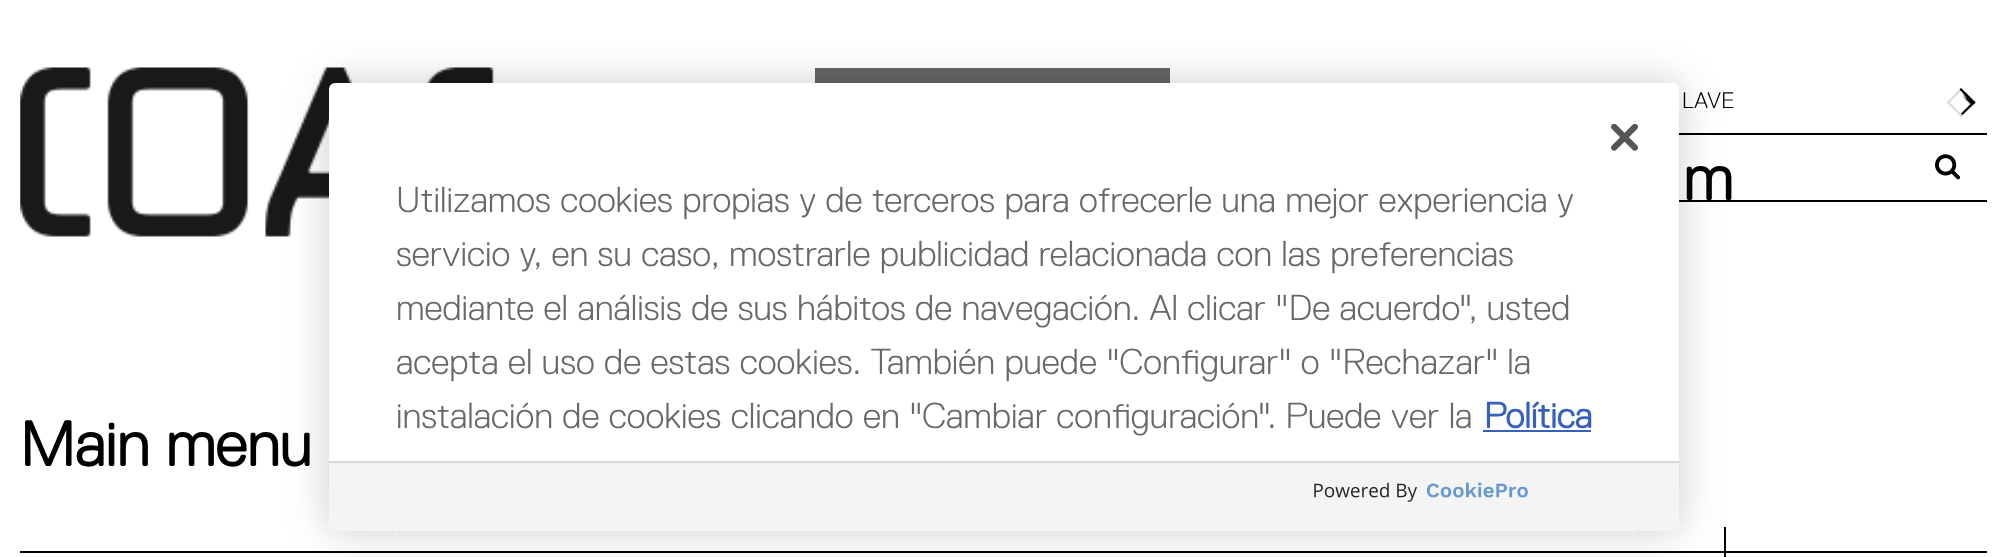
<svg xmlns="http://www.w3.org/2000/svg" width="2007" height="557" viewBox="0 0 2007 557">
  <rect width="100%" height="100%" fill="#fff"/>
  <path d="M815 68h355v15H815z" fill="#666"/>
  <image x="20" y="67" width="474" height="170" href="img/1.png"/>
  <path d="M1679 133h308v2H1679z" fill="#000"/>
  <image x="1962" y="91" width="14" height="15" href="img/2.png"/>
  <path d="M1946.5 102.5L1961 88L1962.5 89.5L1948.5 104Z" fill="#ddd"/>
  <path d="M1959.5 89.5L1961 88L1975.5 102.5L1973.5 104Z" fill="#000"/>
  <path d="M1959.5 115L1973.5 101L1975.5 102.5L1961 116.5Z" fill="#000"/>
  <path d="M1946.5 102.5L1948.5 101L1962.5 115L1961 116.5Z" fill="#ddd"/>
  <path d="M1679 200h308v2H1679z" fill="#000"/>
  <image x="1935" y="154" width="26" height="26" href="img/3.png"/>
  <path d="M20 551h1967v2H20z" fill="#000"/>
  <path d="M1724 527h2v30H1724z" fill="#000"/>
  <rect x="329" y="83" width="1350" height="448" rx="6" fill="#00000033" filter="blur(20px)"/>
  <rect x="329" y="83" width="1350" height="448" rx="6" fill="#fff"/>
  <image x="1611" y="124" width="27" height="27" href="img/4.png"/>
  <path d="M1483 430h108v2H1483z" fill="#3860be"/>
  <path d="M414 520H1616C1626 520 1634 528 1634 538V531H396V538C396 528 404 520 414 520Z" fill="#f9f9fc"/>
  <path d="M329 461H1679V525C1679 528.5 1676.5 531 1673 531H335C331.5 531 329 528.5 329 525Z" fill="#f4f4f4"/>
  <path d="M329 461h1350v2H329z" fill="#d8d8d8"/>
  <image x="1314" y="482" width="214" height="20" href="img/5.png"/>
  <text x="1682" y="108" font-family="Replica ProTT" font-size="22.5" font-weight="300" fill="#000">LAVE</text>
  <g font-family="Replica ProTT" font-size="63" font-weight="bold" fill="#000">
    <text x="1683" y="200">m</text>
    <text x="20" y="466">Main menu</text>
  </g>
  <g font-family="Replica ProTT" font-size="36" font-weight="300" fill="#696969">
    <text x="396" y="212">Utilizamos cookies propias y de terceros para ofrecerle una mejor experiencia y</text>
    <text x="396" y="266">servicio y, en su caso, mostrarle publicidad relacionada con las preferencias</text>
    <text x="396" y="320">mediante el análisis de sus hábitos de navegación. Al clicar "De acuerdo", usted</text>
    <text x="396" y="374">acepta el uso de estas cookies. También puede "Configurar" o "Rechazar" la</text>
    <text x="396" y="428">instalación de cookies clicando en "Cambiar configuración". Puede ver la</text>
  </g>
  <text x="1484" y="428" font-family="Replica ProTT" font-size="36" font-weight="bold" fill="#3860be">Política</text>
</svg>
